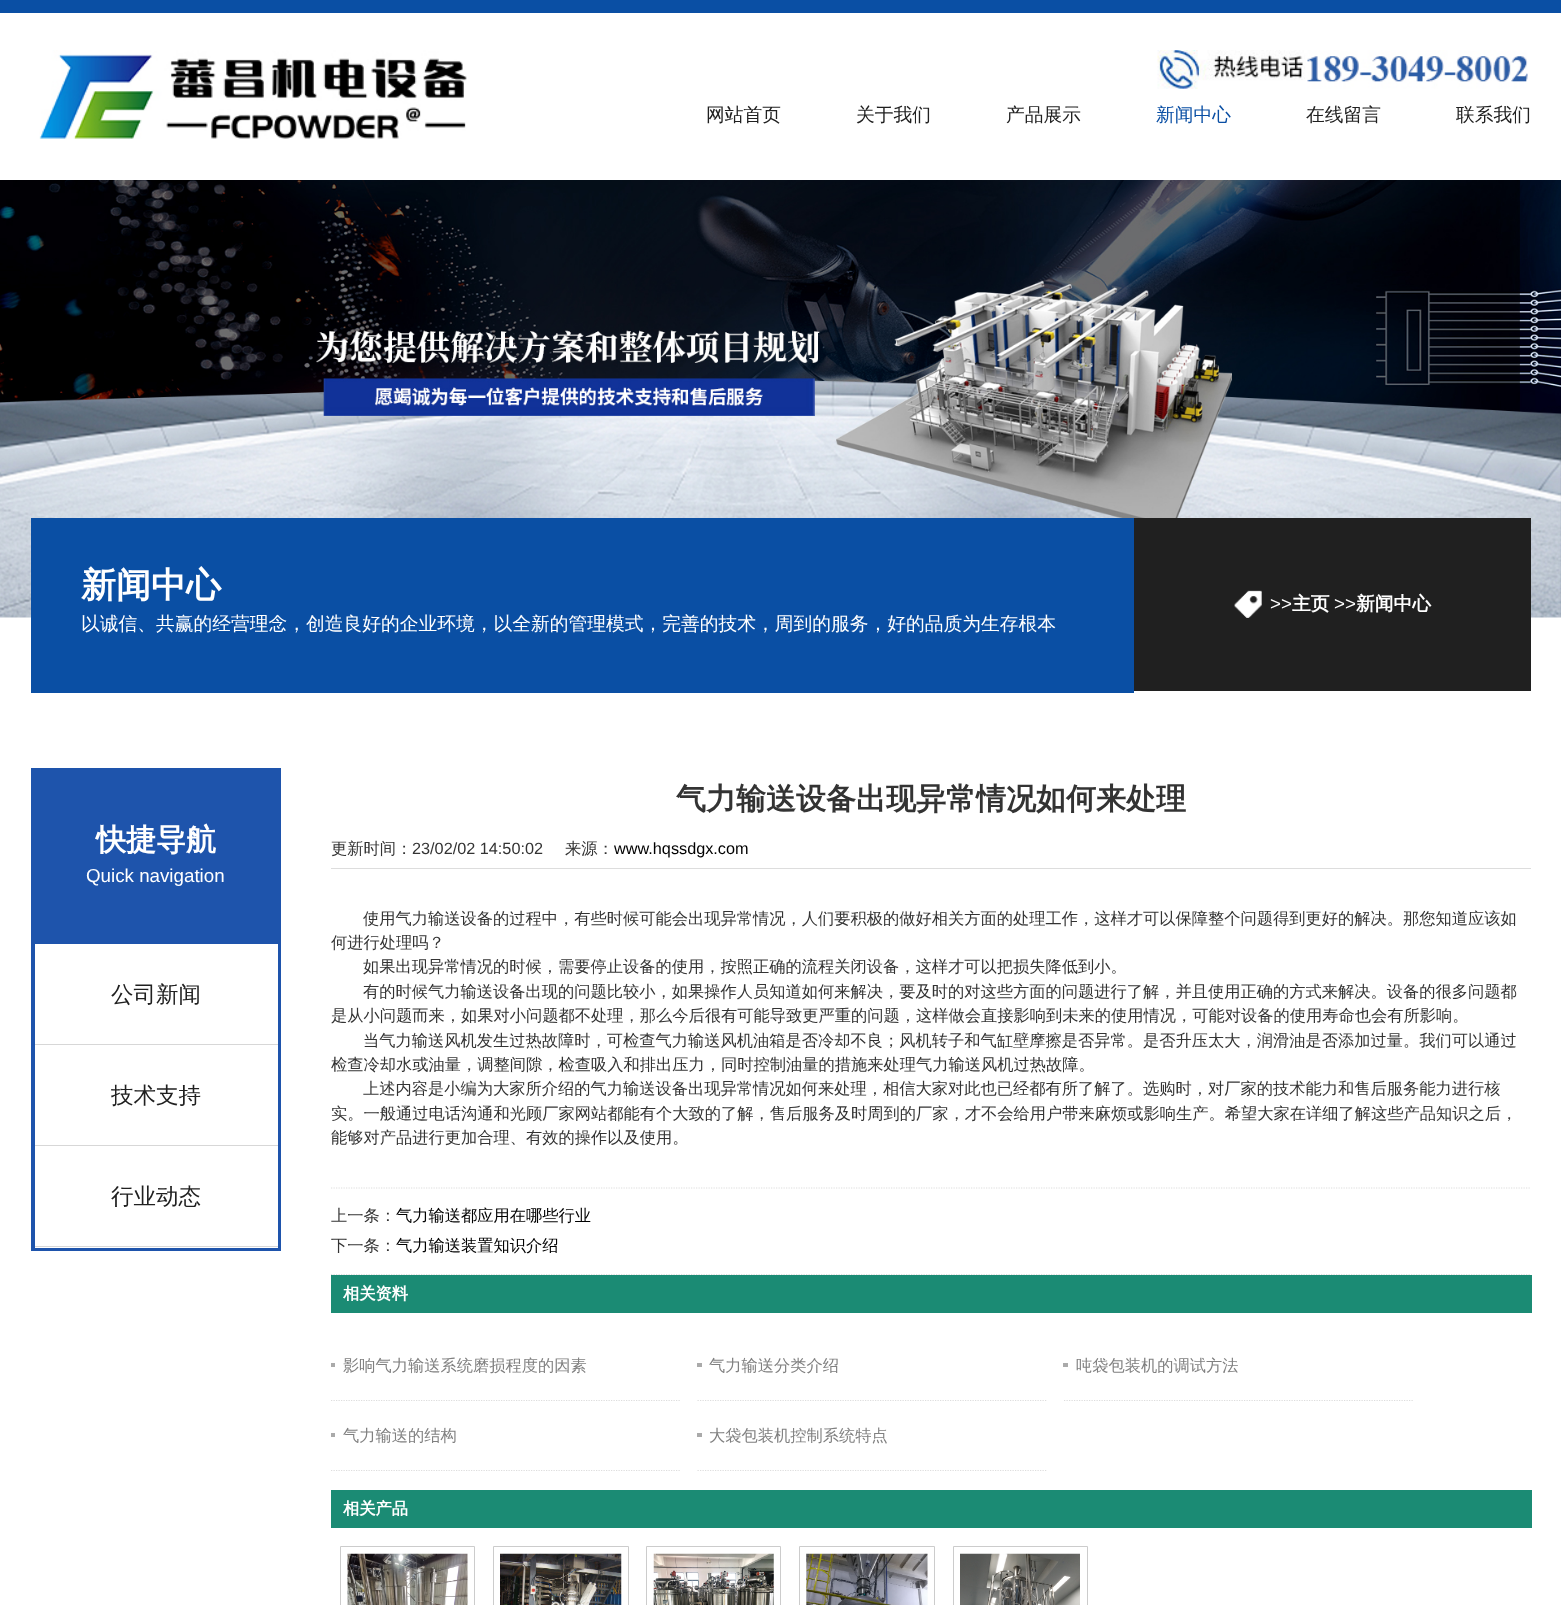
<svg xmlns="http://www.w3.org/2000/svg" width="1561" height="1605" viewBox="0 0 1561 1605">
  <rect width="100%" height="100%" fill="#fff"/>
  <path d="M0 0h1561v13H0z" fill="#0a4fa4"/>
  <image x="39" y="50" width="428" height="89" href="img/1.png"/>
  <image x="1157" y="50" width="371" height="39" href="img/2.png"/>
  <image x="0" y="180" width="1561" height="438" href="img/3.png"/>
  <path d="M31 518h1103v175H31z" fill="#0a4fa4"/>
  <path d="M1134 518h397v173H1134z" fill="#202020"/>
  <image x="1234" y="590" width="28" height="28" href="img/4.png"/>
  <path d="M31 768h250v483H31z" fill="#1e54ac"/>
  <path d="M35 944h243v100H35z" fill="#fff"/>
  <path d="M35 1044h243v1H35z" fill="#d7d7d7"/>
  <path d="M35 1045h243v100H35z" fill="#fff"/>
  <path d="M35 1145h243v1H35z" fill="#d7d7d7"/>
  <path d="M35 1146h243v102H35z" fill="#fff"/>
  <path d="M35 1246h243v1H35z" fill="#d7d7d7"/>
  <path d="M331 868h1200v1H331z" fill="#ddd"/>
  <path d="M331 1188H1531" fill="none" stroke="#ddd" stroke-width="1.2" stroke-dasharray="1.25 1.25"/>
  <path d="M331 1274.5H1531" fill="none" stroke="#ddd" stroke-width="1.2" stroke-dasharray="1.25 1.25"/>
  <path d="M331 1275h1201v38H331z" fill="#1b8b74"/>
  <path d="M331 1363h4v4H331z" fill="#aaa"/>
  <path d="M331 1400.5H681" fill="none" stroke="#ddd" stroke-width="1.2" stroke-dasharray="1.25 1.25"/>
  <path d="M697 1363h5v4H697z" fill="#aaa"/>
  <path d="M697.5 1400.5H1047.5" fill="none" stroke="#ddd" stroke-width="1.2" stroke-dasharray="1.25 1.25"/>
  <path d="M1063 1363h5v4H1063z" fill="#aaa"/>
  <path d="M1064 1400.5H1414" fill="none" stroke="#ddd" stroke-width="1.2" stroke-dasharray="1.25 1.25"/>
  <path d="M331 1433h4v4H331z" fill="#aaa"/>
  <path d="M331 1470.5H681" fill="none" stroke="#ddd" stroke-width="1.2" stroke-dasharray="1.25 1.25"/>
  <path d="M697 1433h5v4H697z" fill="#aaa"/>
  <path d="M697.5 1470.5H1047.5" fill="none" stroke="#ddd" stroke-width="1.2" stroke-dasharray="1.25 1.25"/>
  <path d="M331 1490h1201v38H331z" fill="#1b8b74"/>
  <path d="M340.5 1546.5h134v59H340.5z" fill="none" stroke="#ccc"/>
  <image x="347" y="1553" width="121" height="52" href="img/5.png"/>
  <path d="M493.5 1546.5h135v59H493.5z" fill="none" stroke="#ccc"/>
  <image x="500" y="1553" width="122" height="52" href="img/6.png"/>
  <path d="M646.5 1546.5h134v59H646.5z" fill="none" stroke="#ccc"/>
  <image x="653" y="1553" width="121" height="52" href="img/7.png"/>
  <path d="M799.5 1546.5h135v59H799.5z" fill="none" stroke="#ccc"/>
  <image x="806" y="1553" width="122" height="52" href="img/8.png"/>
  <path d="M953.5 1546.5h134v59H953.5z" fill="none" stroke="#ccc"/>
  <image x="960" y="1553" width="120" height="52" href="img/9.png"/>
  <g font-family="WenQuanYi Zen Hei" font-size="18.75" font-weight="500" fill="#202020">
    <text x="706" y="121">网站首页</text>
    <text x="856" y="121">关于我们</text>
    <text x="1006" y="121">产品展示</text>
  </g>
  <text x="1156" y="121" font-family="WenQuanYi Zen Hei" font-size="18.75" font-weight="500" fill="#0a4fa4">新闻中心</text>
  <g font-family="WenQuanYi Zen Hei" font-size="18.75" font-weight="500" fill="#202020">
    <text x="1306" y="121">在线留言</text>
    <text x="1456" y="121">联系我们</text>
  </g>
  <text x="81" y="597" font-family="WenQuanYi Zen Hei" font-size="35" font-weight="bold" fill="#fff">新闻中心</text>
  <text x="81" y="630" font-family="WenQuanYi Zen Hei" font-size="18.75" font-weight="500" fill="#fff">以诚信、共赢的经营理念，创造良好的企业环境，以全新的管理模式，完善的技术，周到的服务，好的品质为生存根本</text>
  <text x="1270" y="610" font-family="Liberation Sans" font-size="18.75" fill="#fff">&gt;&gt;</text>
  <text x="1292" y="610" font-family="WenQuanYi Zen Hei" font-size="18.75" font-weight="bold" fill="#fff">主页</text>
  <text x="1334" y="610" font-family="Liberation Sans" font-size="18.75" fill="#fff">&gt;&gt;</text>
  <text x="1356" y="610" font-family="WenQuanYi Zen Hei" font-size="18.75" font-weight="bold" fill="#fff">新闻中心</text>
  <text x="96" y="850" font-family="WenQuanYi Zen Hei" font-size="30" font-weight="bold" fill="#fff">快捷导航</text>
  <text x="86" y="882" font-family="Liberation Sans" font-size="18.75" fill="#fff">Quick navigation</text>
  <g font-family="WenQuanYi Zen Hei" font-size="22.5" font-weight="500" fill="#202020">
    <text x="111" y="1002">公司新闻</text>
    <text x="111" y="1103">技术支持</text>
    <text x="111" y="1204">行业动态</text>
  </g>
  <text x="676" y="809" font-family="WenQuanYi Zen Hei" font-size="30" font-weight="bold" fill="#333">气力输送设备出现异常情况如何来处理</text>
  <text x="331" y="854" font-family="WenQuanYi Zen Hei" font-size="16.25" font-weight="500" fill="#333">更新时间：</text>
  <text x="412" y="854" font-family="Liberation Sans" font-size="16.25" fill="#333">23/02/02 14:50:02</text>
  <text x="565" y="854" font-family="WenQuanYi Zen Hei" font-size="16.25" font-weight="500" fill="#333">来源：</text>
  <text x="614" y="854" font-family="Liberation Sans" font-size="16.25" fill="#000">www.hqssdgx.com</text>
  <g font-family="WenQuanYi Zen Hei" font-size="16.25" font-weight="500" fill="#333">
    <text x="363" y="924">使用气力输送设备的过程中，有些时候可能会出现异常情况，人们要积极的做好相关方面的处理工作，这样才可以保障整个问题得到更好的解决。那您知道应该如</text>
    <text x="331" y="948">何进行处理吗？</text>
    <text x="363" y="972">如果出现异常情况的时候，需要停止设备的使用，按照正确的流程关闭设备，这样才可以把损失降低到小。</text>
    <text x="363" y="997">有的时候气力输送设备出现的问题比较小，如果操作人员知道如何来解决，要及时的对这些方面的问题进行了解，并且使用正确的方式来解决。设备的很多问题都</text>
    <text x="331" y="1021">是从小问题而来，如果对小问题都不处理，那么今后很有可能导致更严重的问题，这样做会直接影响到未来的使用情况，可能对设备的使用寿命也会有所影响。</text>
    <text x="363" y="1046">当气力输送风机发生过热故障时，可检查气力输送风机油箱是否冷却不良；风机转子和气缸壁摩擦是否异常。是否升压太大，润滑油是否添加过量。我们可以通过</text>
    <text x="331" y="1070">检查冷却水或油量，调整间隙，检查吸入和排出压力，同时控制油量的措施来处理气力输送风机过热故障。</text>
    <text x="363" y="1094">上述内容是小编为大家所介绍的气力输送设备出现异常情况如何来处理，相信大家对此也已经都有所了解了。选购时，对厂家的技术能力和售后服务能力进行核</text>
    <text x="331" y="1119">实。一般通过电话沟通和光顾厂家网站都能有个大致的了解，售后服务及时周到的厂家，才不会给用户带来麻烦或影响生产。希望大家在详细了解这些产品知识之后，</text>
    <text x="331" y="1143">能够对产品进行更加合理、有效的操作以及使用。</text>
    <text x="331" y="1221">上一条：</text>
  </g>
  <text x="396" y="1221" font-family="WenQuanYi Zen Hei" font-size="16.25" font-weight="500" fill="#000">气力输送都应用在哪些行业</text>
  <text x="331" y="1251" font-family="WenQuanYi Zen Hei" font-size="16.25" font-weight="500" fill="#333">下一条：</text>
  <text x="396" y="1251" font-family="WenQuanYi Zen Hei" font-size="16.25" font-weight="500" fill="#000">气力输送装置知识介绍</text>
  <text x="343" y="1299" font-family="WenQuanYi Zen Hei" font-size="16.25" font-weight="bold" fill="#fff">相关资料</text>
  <g font-family="WenQuanYi Zen Hei" font-size="16.25" font-weight="500" fill="#808080">
    <text x="343" y="1371">影响气力输送系统磨损程度的因素</text>
    <text x="709" y="1371">气力输送分类介绍</text>
    <text x="1076" y="1371">吨袋包装机的调试方法</text>
    <text x="343" y="1441">气力输送的结构</text>
    <text x="709" y="1441">大袋包装机控制系统特点</text>
  </g>
  <text x="343" y="1514" font-family="WenQuanYi Zen Hei" font-size="16.25" font-weight="bold" fill="#fff">相关产品</text>
</svg>
